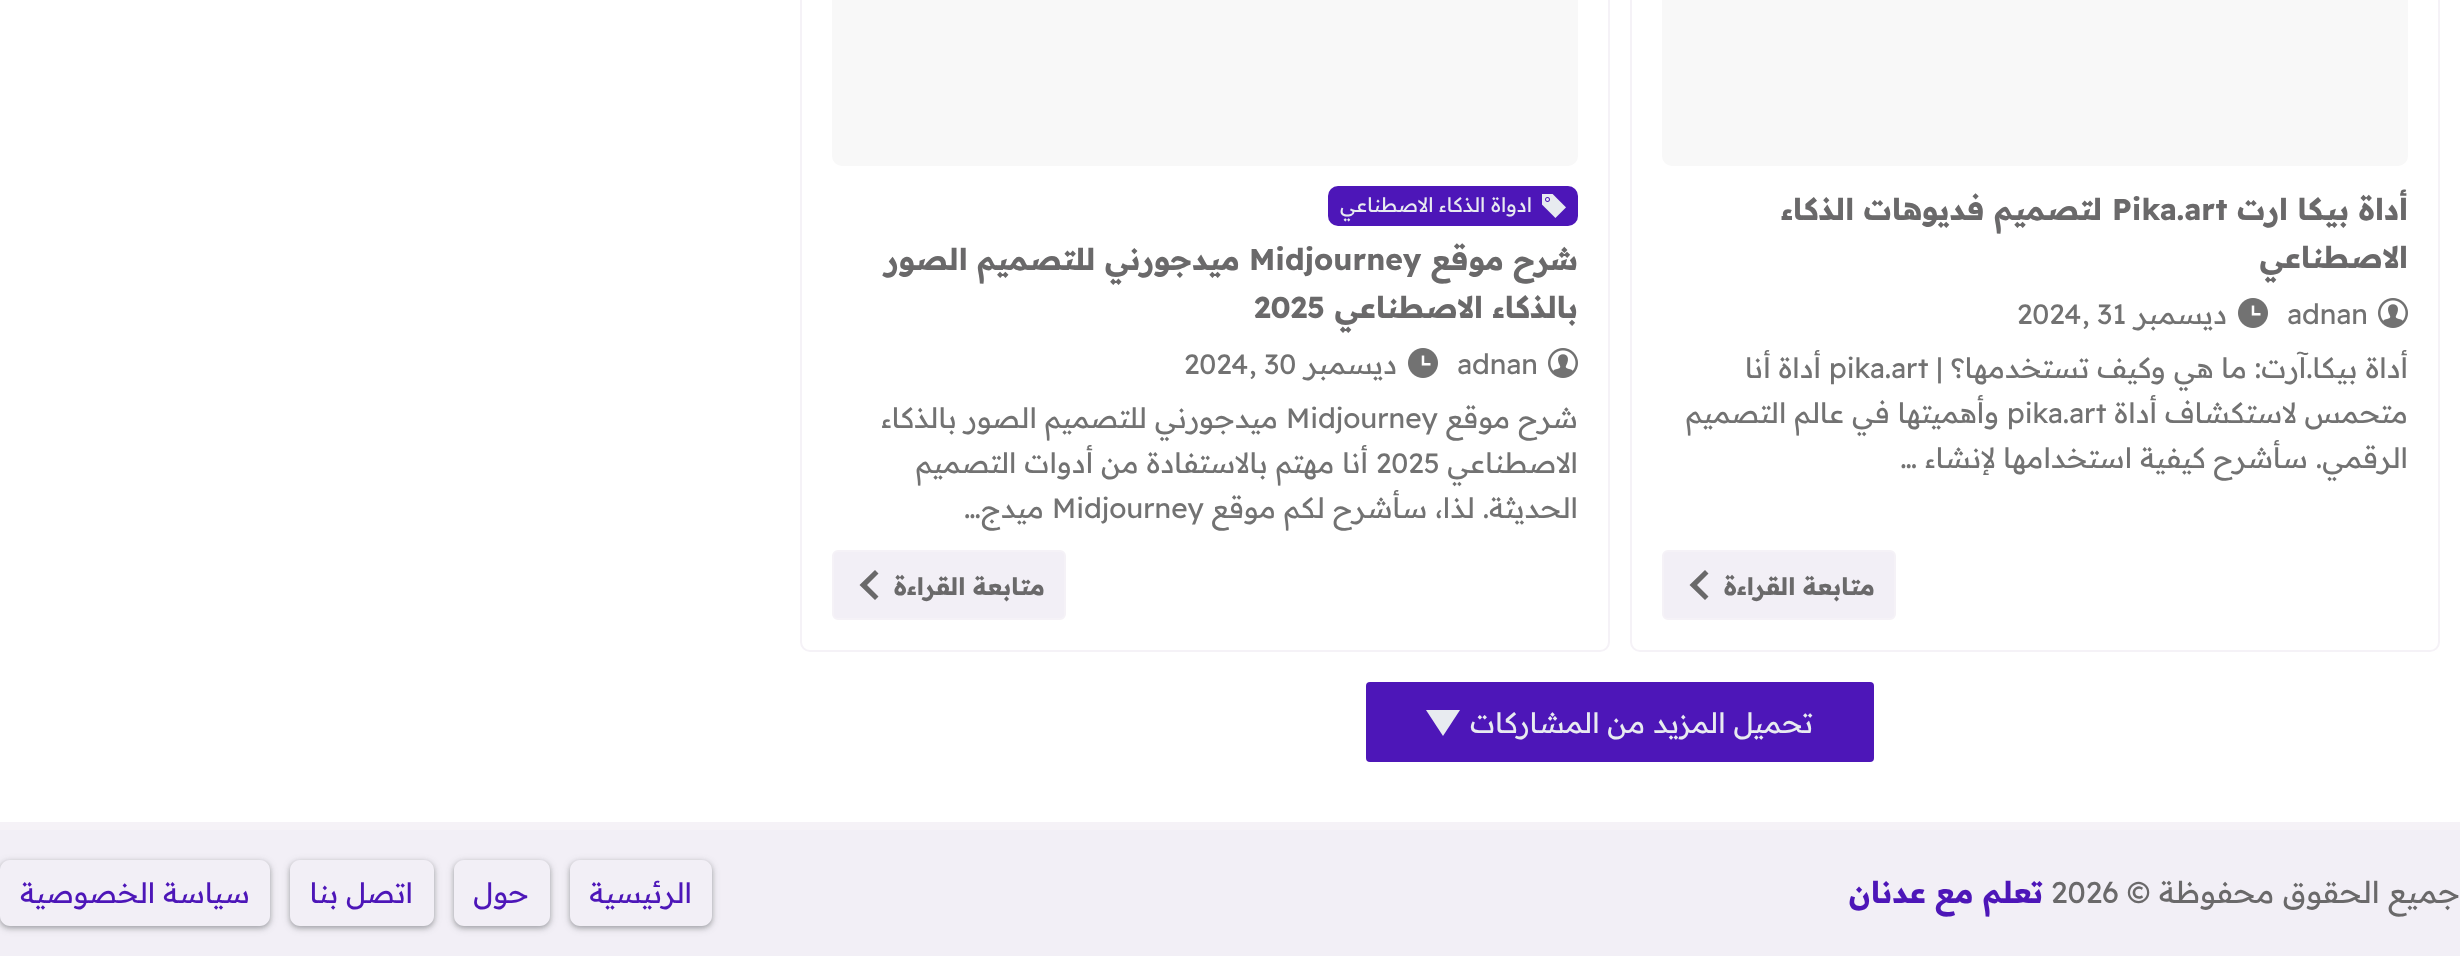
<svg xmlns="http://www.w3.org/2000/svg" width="2460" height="956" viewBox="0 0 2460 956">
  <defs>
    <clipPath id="clip1"><path d="M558 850H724V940H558ZM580 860H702C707.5 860 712 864.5 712 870V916C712 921.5 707.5 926 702 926H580C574.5 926 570 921.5 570 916V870C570 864.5 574.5 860 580 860Z" clip-rule="evenodd"/></clipPath>
    <clipPath id="clip2"><path d="M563 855H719V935H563ZM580 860H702C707.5 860 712 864.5 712 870V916C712 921.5 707.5 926 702 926H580C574.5 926 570 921.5 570 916V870C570 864.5 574.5 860 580 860Z" clip-rule="evenodd"/></clipPath>
    <clipPath id="clip3"><path d="M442 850H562V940H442ZM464 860H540C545.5 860 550 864.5 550 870V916C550 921.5 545.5 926 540 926H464C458.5 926 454 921.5 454 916V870C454 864.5 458.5 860 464 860Z" clip-rule="evenodd"/></clipPath>
    <clipPath id="clip4"><path d="M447 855H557V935H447ZM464 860H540C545.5 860 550 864.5 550 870V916C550 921.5 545.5 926 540 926H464C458.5 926 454 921.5 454 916V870C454 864.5 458.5 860 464 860Z" clip-rule="evenodd"/></clipPath>
    <clipPath id="clip5"><path d="M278 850H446V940H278ZM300 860H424C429.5 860 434 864.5 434 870V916C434 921.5 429.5 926 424 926H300C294.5 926 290 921.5 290 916V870C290 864.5 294.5 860 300 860Z" clip-rule="evenodd"/></clipPath>
    <clipPath id="clip6"><path d="M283 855H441V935H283ZM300 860H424C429.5 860 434 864.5 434 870V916C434 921.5 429.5 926 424 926H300C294.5 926 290 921.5 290 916V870C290 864.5 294.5 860 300 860Z" clip-rule="evenodd"/></clipPath>
    <clipPath id="clip7"><path d="M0 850H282V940H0ZM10 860H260C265.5 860 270 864.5 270 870V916C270 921.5 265.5 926 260 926H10C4.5 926 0 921.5 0 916V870C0 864.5 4.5 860 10 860Z" clip-rule="evenodd"/></clipPath>
    <clipPath id="clip8"><path d="M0 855H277V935H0ZM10 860H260C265.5 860 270 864.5 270 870V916C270 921.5 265.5 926 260 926H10C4.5 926 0 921.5 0 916V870C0 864.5 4.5 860 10 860Z" clip-rule="evenodd"/></clipPath>
  </defs>
  <rect width="100%" height="100%" fill="#fff"/>
  <rect x="1631" y="-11" width="808" height="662" rx="9" fill="none" stroke="#f5f2f7" stroke-width="2"/>
  <rect x="1662" y="-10" width="746" height="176" rx="10" fill="#f8f8f8"/>
  <image x="2378" y="298" width="30" height="30" href="img/1.png"/>
  <image x="2238" y="298" width="30" height="30" href="img/2.png"/>
  <rect x="1663" y="551" width="232" height="68" rx="5" fill="#f2eff6" stroke="#f5f2f7" stroke-width="2"/>
  <path d="M1705 570L1708.5 573.5L1697 585L1708.5 596.5L1705 600L1689.5 585Z" fill="#6a696a"/>
  <rect x="801" y="-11" width="808" height="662" rx="9" fill="none" stroke="#f5f2f7" stroke-width="2"/>
  <rect x="832" y="-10" width="746" height="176" rx="10" fill="#f8f8f8"/>
  <rect x="1328" y="186" width="250" height="40" rx="10" fill="#4d16b8"/>
  <image x="1542" y="194" width="24" height="24" href="img/3.png"/>
  <image x="1548" y="348" width="30" height="30" href="img/1.png"/>
  <image x="1408" y="348" width="30" height="30" href="img/2.png"/>
  <rect x="833" y="551" width="232" height="68" rx="5" fill="#f2eff6" stroke="#f5f2f7" stroke-width="2"/>
  <path d="M875 570L878.5 573.5L867 585L878.5 596.5L875 600L859.5 585Z" fill="#6a696a"/>
  <rect x="1366" y="682" width="508" height="80" rx="4" fill="#4d16b8"/>
  <path d="M1443 736L1426 710H1460Z" fill="#e8ebf0"/>
  <path d="M0 822h2460v8H0z" fill="#f5f2f7"/>
  <path d="M0 830h2460v126H0z" fill="#f2eff6"/>
  <g clip-path="url(#clip1)">
    <rect x="568" y="860" width="146" height="70" rx="12" fill="#3c404326" filter="blur(3px)"/>
  </g>
  <g clip-path="url(#clip2)">
    <rect x="570" y="862" width="142" height="66" rx="10" fill="#3c40434d" filter="blur(2px)"/>
  </g>
  <g clip-path="url(#clip3)">
    <rect x="452" y="860" width="100" height="70" rx="12" fill="#3c404326" filter="blur(3px)"/>
  </g>
  <g clip-path="url(#clip4)">
    <rect x="454" y="862" width="96" height="66" rx="10" fill="#3c40434d" filter="blur(2px)"/>
  </g>
  <g clip-path="url(#clip5)">
    <rect x="288" y="860" width="148" height="70" rx="12" fill="#3c404326" filter="blur(3px)"/>
  </g>
  <g clip-path="url(#clip6)">
    <rect x="290" y="862" width="144" height="66" rx="10" fill="#3c40434d" filter="blur(2px)"/>
  </g>
  <g clip-path="url(#clip7)">
    <rect x="-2" y="860" width="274" height="70" rx="12" fill="#3c404326" filter="blur(3px)"/>
  </g>
  <g clip-path="url(#clip8)">
    <rect y="862" width="270" height="66" rx="10" fill="#3c40434d" filter="blur(2px)"/>
  </g>
  <text x="2408" y="220" font-family="Readex Pro" font-size="30" font-weight="bold" direction="rtl" fill="#6a696a">أداة بيكا ارت</text>
  <text x="2112" y="220" font-family="Readex Pro" font-size="30" font-weight="bold" fill="#6a696a">Pika.art</text>
  <g font-family="Readex Pro" font-size="30" font-weight="bold" direction="rtl" fill="#6a696a">
    <text x="2102" y="220">لتصميم فديوهات الذكاء</text>
    <text x="2408" y="268">الاصطناعي</text>
  </g>
  <text x="2287" y="324" font-family="Readex Pro" font-size="28" fill="#727272">adnan</text>
  <text x="2227" y="324" font-family="Readex Pro" font-size="28" direction="rtl" fill="#727272">ديسمبر</text>
  <g font-family="Readex Pro" font-size="28" fill="#727272">
    <text x="2082" y="324">, 31</text>
    <text x="2017" y="324">2024</text>
  </g>
  <text x="2408" y="378" font-family="Readex Pro" font-size="28" direction="rtl" fill="#727272">أداة بيكا.آرت: ما هي وكيف تستخدمها؟ |</text>
  <text x="1829" y="378" font-family="Readex Pro" font-size="28" fill="#727272">pika.art</text>
  <g font-family="Readex Pro" font-size="28" direction="rtl" fill="#727272">
    <text x="1821" y="378">أداة أنا</text>
    <text x="2408" y="423">متحمس لاستكشاف أداة</text>
  </g>
  <text x="2007" y="423" font-family="Readex Pro" font-size="28" fill="#727272">pika.art</text>
  <g font-family="Readex Pro" font-size="28" direction="rtl" fill="#727272">
    <text x="1999" y="423">وأهميتها في عالم التصميم</text>
    <text x="2408" y="468">الرقمي. سأشرح كيفية استخدامها لإنشاء …</text>
  </g>
  <text x="1875" y="595" font-family="Readex Pro" font-size="24" font-weight="bold" direction="rtl" fill="#6a696a">متابعة القراءة</text>
  <text x="1532" y="212" font-family="Readex Pro" font-size="20" direction="rtl" fill="#e8ebf0">ادواة الذكاء الاصطناعي</text>
  <text x="1578" y="270" font-family="Readex Pro" font-size="30" font-weight="bold" direction="rtl" fill="#6a696a">شرح موقع</text>
  <text x="1249" y="270" font-family="Readex Pro" font-size="30" font-weight="bold" fill="#6a696a">Midjourney</text>
  <g font-family="Readex Pro" font-size="30" font-weight="bold" direction="rtl" fill="#6a696a">
    <text x="1240" y="270">ميدجورني للتصميم الصور</text>
    <text x="1578" y="318">بالذكاء الاصطناعي</text>
  </g>
  <text x="1254" y="318" font-family="Readex Pro" font-size="30" font-weight="bold" fill="#6a696a">2025</text>
  <text x="1457" y="374" font-family="Readex Pro" font-size="28" fill="#727272">adnan</text>
  <text x="1397" y="374" font-family="Readex Pro" font-size="28" direction="rtl" fill="#727272">ديسمبر</text>
  <g font-family="Readex Pro" font-size="28" fill="#727272">
    <text x="1249" y="374">, 30</text>
    <text x="1184" y="374">2024</text>
  </g>
  <text x="1578" y="428" font-family="Readex Pro" font-size="28" direction="rtl" fill="#727272">شرح موقع</text>
  <text x="1286" y="428" font-family="Readex Pro" font-size="28" fill="#727272">Midjourney</text>
  <g font-family="Readex Pro" font-size="28" direction="rtl" fill="#727272">
    <text x="1278" y="428">ميدجورني للتصميم الصور بالذكاء</text>
    <text x="1578" y="473">الاصطناعي</text>
  </g>
  <text x="1376" y="473" font-family="Readex Pro" font-size="28" fill="#727272">2025</text>
  <g font-family="Readex Pro" font-size="28" direction="rtl" fill="#727272">
    <text x="1368" y="473">أنا مهتم بالاستفادة من أدوات التصميم</text>
    <text x="1578" y="518">الحديثة. لذا، سأشرح لكم موقع</text>
  </g>
  <text x="1052" y="518" font-family="Readex Pro" font-size="28" fill="#727272">Midjourney</text>
  <text x="1044" y="518" font-family="Readex Pro" font-size="28" direction="rtl" fill="#727272">ميدج…</text>
  <text x="1045" y="595" font-family="Readex Pro" font-size="24" font-weight="bold" direction="rtl" fill="#6a696a">متابعة القراءة</text>
  <text x="1813" y="733" font-family="Readex Pro" font-size="28" direction="rtl" fill="#e8ebf0">تحميل المزيد من المشاركات</text>
  <text x="2460" y="903" font-family="Readex Pro" font-size="30" direction="rtl" fill="#6a696a">جميع الحقوق محفوظة ©</text>
  <text x="2051" y="903" font-family="Readex Pro" font-size="30" fill="#6a696a">2026</text>
  <text x="2043" y="903" font-family="Readex Pro" font-size="30" font-weight="bold" direction="rtl" fill="#4d16b8">تعلم مع عدنان</text>
  <g font-family="Readex Pro" font-size="28" direction="rtl" fill="#4d16b8">
    <text x="692" y="903">الرئيسية</text>
    <text x="529" y="903">حول</text>
    <text x="413" y="903">اتصل بنا</text>
    <text x="250" y="903">سياسة الخصوصية</text>
  </g>
</svg>
